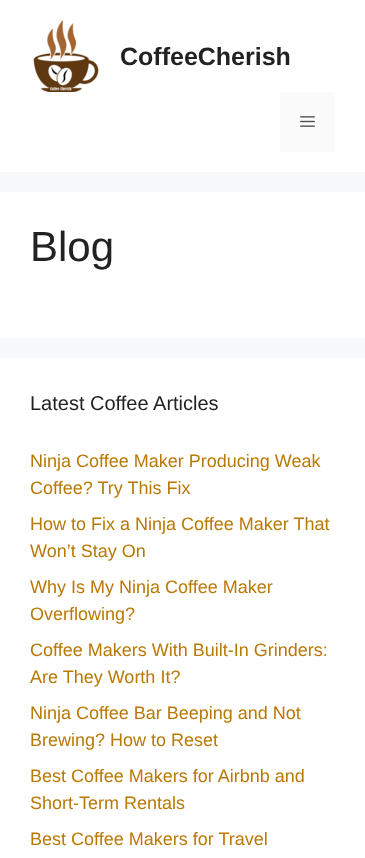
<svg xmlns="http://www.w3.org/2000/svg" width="365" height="858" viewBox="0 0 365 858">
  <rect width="100%" height="100%" fill="#f7f8f9"/>
  <path d="M0 0h365v172H0z" fill="#fff"/>
  <image x="33" y="20" width="66" height="72" href="img/1.png"/>
  <path d="M280 92h55v60H280z" fill="#fafafa"/>
  <image x="300" y="116" width="15" height="11" href="img/2.png"/>
  <path d="M0 192h365v146H0z" fill="#fff"/>
  <path d="M0 358h365v500H0z" fill="#fff"/>
  <text x="120" y="65" font-family="Liberation Sans" font-size="25" font-weight="bold" fill="#222">CoffeeCherish</text>
  <text x="30" y="261" font-family="Liberation Sans" font-size="42" fill="#222">Blog</text>
  <text x="30" y="410" font-family="Liberation Sans" font-size="20" fill="#222">Latest Coffee Articles</text>
  <g font-family="Liberation Sans" font-size="18" fill="#ba7805">
    <text x="30" y="467">Ninja Coffee Maker Producing Weak</text>
    <text x="30" y="494">Coffee? Try This Fix</text>
    <text x="30" y="530">How to Fix a Ninja Coffee Maker That</text>
    <text x="30" y="557">Won’t Stay On</text>
    <text x="30" y="593">Why Is My Ninja Coffee Maker</text>
    <text x="30" y="620">Overflowing?</text>
    <text x="30" y="656">Coffee Makers With Built-In Grinders:</text>
    <text x="30" y="683">Are They Worth It?</text>
    <text x="30" y="719">Ninja Coffee Bar Beeping and Not</text>
    <text x="30" y="746">Brewing? How to Reset</text>
    <text x="30" y="782">Best Coffee Makers for Airbnb and</text>
    <text x="30" y="809">Short-Term Rentals</text>
    <text x="30" y="845">Best Coffee Makers for Travel</text>
  </g>
</svg>
